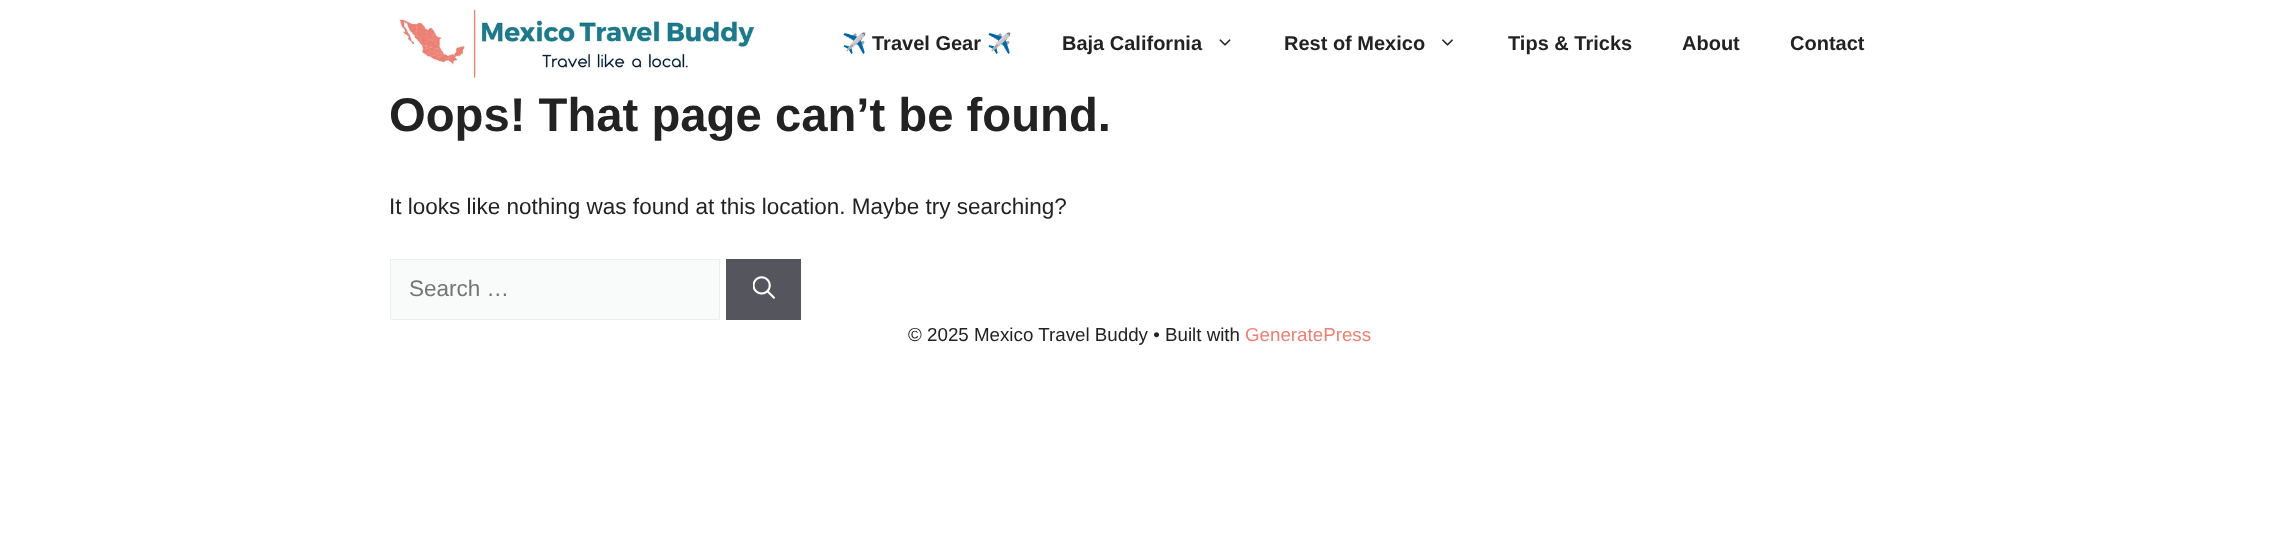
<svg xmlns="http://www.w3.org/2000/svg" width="2278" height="555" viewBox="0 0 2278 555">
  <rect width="100%" height="100%" fill="#fff"/>
  <image x="399" y="6" width="356" height="73" href="img/1.png"/>
  <image x="1219" y="39" width="12" height="7" href="img/2.png"/>
  <image x="1442" y="39" width="11" height="7" href="img/3.png"/>
  <path d="M390.5 259.5h329v60H390.5z" fill="#f9fafa" stroke="#ebedf0"/>
  <path d="M726 259h75v61H726z" fill="#55555e"/>
  <image x="753" y="276" width="22" height="23" href="img/4.png"/>
  <text x="842" y="50" font-family="Noto Color Emoji" font-size="20" font-weight="bold" fill="#222">✈️</text>
  <text x="872" y="50" font-family="Liberation Sans" font-size="20" font-weight="bold" fill="#222">Travel Gear</text>
  <text x="987" y="50" font-family="Noto Color Emoji" font-size="20" font-weight="bold" fill="#222">✈️</text>
  <g font-family="Liberation Sans" font-size="20" font-weight="bold" fill="#222">
    <text x="1062" y="50">Baja California</text>
    <text x="1284" y="50">Rest of Mexico</text>
    <text x="1508" y="50">Tips &amp; Tricks</text>
    <text x="1682" y="50">About</text>
    <text x="1790" y="50">Contact</text>
  </g>
  <text x="389" y="131" font-family="Liberation Sans" font-size="47.25" font-weight="bold" fill="#222">Oops! That page can’t be found.</text>
  <text x="389" y="214" font-family="Liberation Sans" font-size="22.5" fill="#222">It looks like nothing was found at this location. Maybe try searching?</text>
  <text x="409" y="296" font-family="Liberation Sans" font-size="22.5" fill="#757575">Search …</text>
  <text x="908" y="341" font-family="Liberation Sans" font-size="18.75" fill="#222">© 2025 Mexico Travel Buddy • Built with</text>
  <text x="1245" y="341" font-family="Liberation Sans" font-size="18.75" fill="#ec8074">GeneratePress</text>
</svg>
